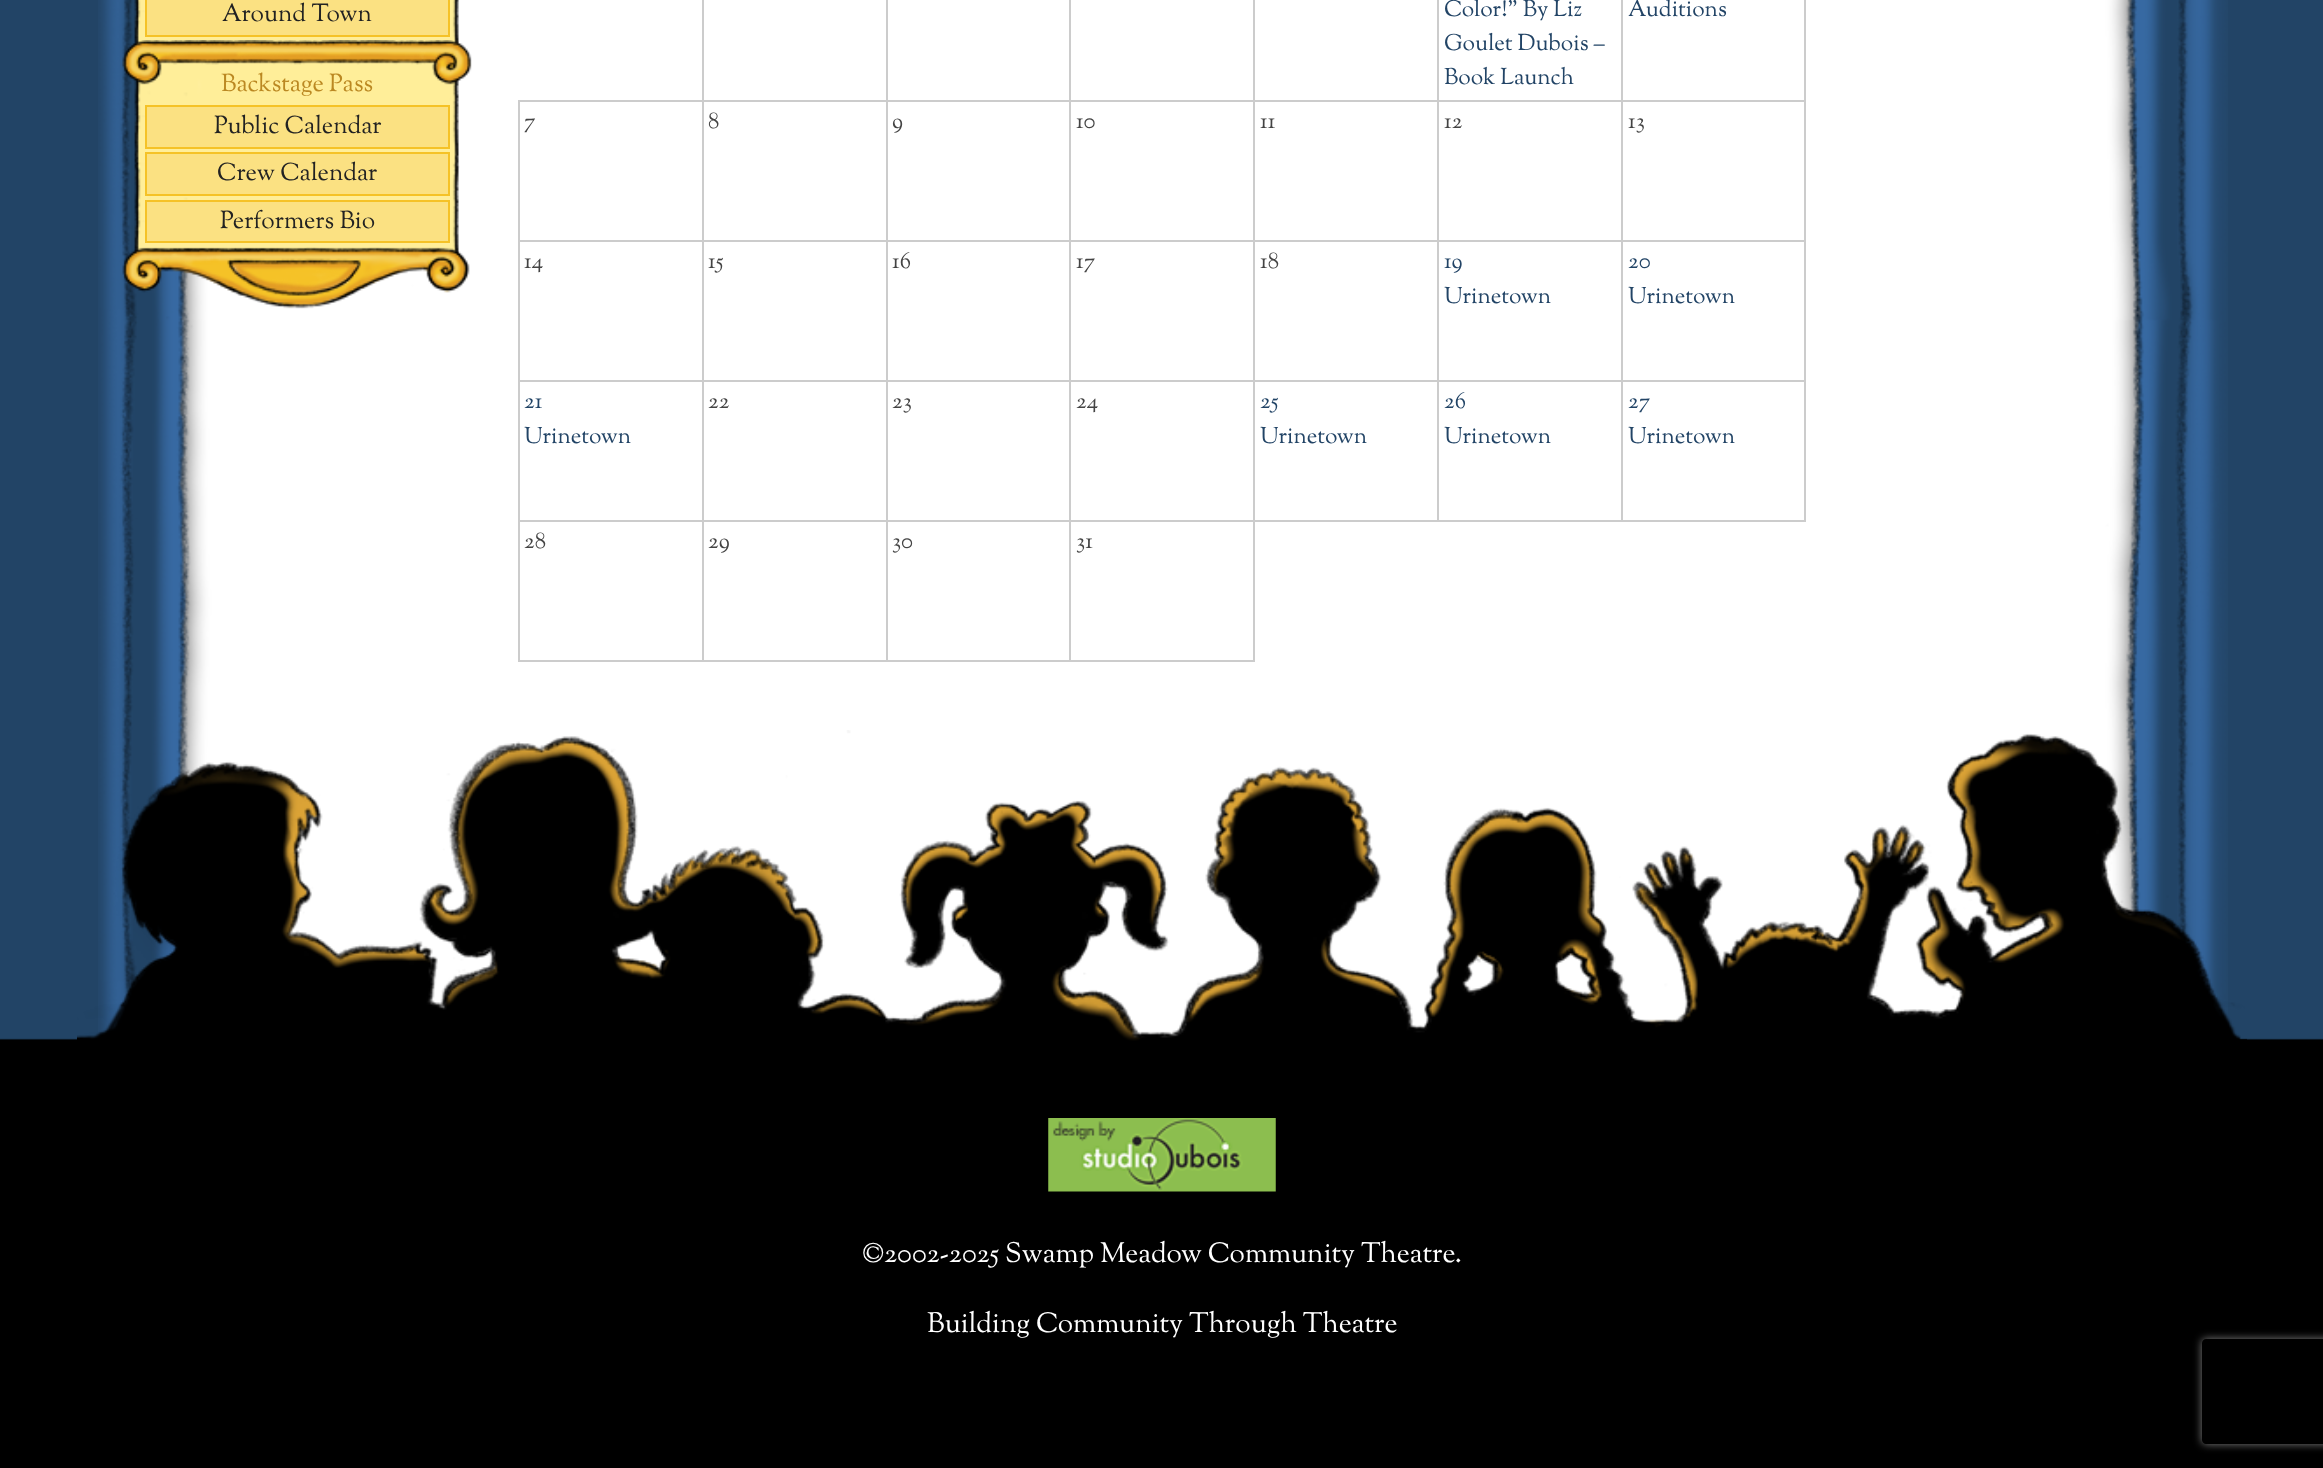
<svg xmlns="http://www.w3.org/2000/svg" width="2323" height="1468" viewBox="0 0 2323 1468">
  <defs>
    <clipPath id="clip1"><path d="M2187 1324H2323V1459H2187ZM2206 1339H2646C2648 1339 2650 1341 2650 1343V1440C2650 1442 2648 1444 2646 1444H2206C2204 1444 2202 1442 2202 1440V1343C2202 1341 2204 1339 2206 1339Z" clip-rule="evenodd"/></clipPath>
  </defs>
  <rect width="100%" height="100%" fill="#246"/>
  <image x="98" y="0" width="2130" height="1038" href="img/1.png"/>
  <image x="134" y="0" width="326" height="256" href="img/2.png"/>
  <path d="M146 -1h303v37H146z" fill="#fbe182" stroke="#f5c227" stroke-width="2"/>
  <image x="122" y="40" width="350" height="45" href="img/3.png"/>
  <path d="M146 106h303v42H146z" fill="#fbe182" stroke="#f5c227" stroke-width="2"/>
  <path d="M146 153h303v42H146z" fill="#fbe182" stroke="#f5c227" stroke-width="2"/>
  <path d="M146 201h303v41H146z" fill="#fbe182" stroke="#f5c227" stroke-width="2"/>
  <image x="122" y="247" width="348" height="62" href="img/4.png"/>
  <path d="M1621 100h185v2H1621z" fill="#ccc"/>
  <path d="M1621 240h185v2H1621z" fill="#ccc"/>
  <path d="M1621 380h185v2H1621z" fill="#ccc"/>
  <path d="M1804 380h2v142H1804z" fill="#ccc"/>
  <path d="M1621 520h185v2H1621z" fill="#ccc"/>
  <path d="M1621 380h2v142H1621z" fill="#ccc"/>
  <path d="M1437 380h185v2H1437z" fill="#ccc"/>
  <path d="M1621 240h2v142H1621z" fill="#ccc"/>
  <path d="M1437 240h185v2H1437z" fill="#ccc"/>
  <path d="M1621 100h2v142H1621z" fill="#ccc"/>
  <path d="M1437 100h185v2H1437z" fill="#ccc"/>
  <path d="M1437 520h185v2H1437z" fill="#ccc"/>
  <path d="M1437 380h2v142H1437z" fill="#ccc"/>
  <path d="M1253 380h186v2H1253z" fill="#ccc"/>
  <path d="M1437 240h2v142H1437z" fill="#ccc"/>
  <path d="M1253 240h186v2H1253z" fill="#ccc"/>
  <path d="M1437 100h2v142H1437z" fill="#ccc"/>
  <path d="M1253 100h186v2H1253z" fill="#ccc"/>
  <path d="M1069 520h186v2H1069z" fill="#ccc"/>
  <path d="M1253 520h2v142H1253z" fill="#ccc"/>
  <path d="M1253 520h186v2H1253z" fill="#ccc"/>
  <path d="M1253 380h2v142H1253z" fill="#ccc"/>
  <path d="M1069 380h186v2H1069z" fill="#ccc"/>
  <path d="M1253 240h2v142H1253z" fill="#ccc"/>
  <path d="M1069 240h186v2H1069z" fill="#ccc"/>
  <path d="M1253 100h2v142H1253z" fill="#ccc"/>
  <path d="M1069 100h186v2H1069z" fill="#ccc"/>
  <path d="M1069 660h186v2H1069z" fill="#ccc"/>
  <path d="M1069 520h2v142H1069z" fill="#ccc"/>
  <path d="M886 520h185v2H886z" fill="#ccc"/>
  <path d="M1069 380h2v142H1069z" fill="#ccc"/>
  <path d="M886 380h185v2H886z" fill="#ccc"/>
  <path d="M1069 240h2v142H1069z" fill="#ccc"/>
  <path d="M886 240h185v2H886z" fill="#ccc"/>
  <path d="M1069 100h2v142H1069z" fill="#ccc"/>
  <path d="M886 100h185v2H886z" fill="#ccc"/>
  <path d="M886 660h185v2H886z" fill="#ccc"/>
  <path d="M886 520h2v142H886z" fill="#ccc"/>
  <path d="M702 520h185v2H702z" fill="#ccc"/>
  <path d="M886 380h2v142H886z" fill="#ccc"/>
  <path d="M702 380h185v2H702z" fill="#ccc"/>
  <path d="M886 240h2v142H886z" fill="#ccc"/>
  <path d="M702 240h185v2H702z" fill="#ccc"/>
  <path d="M886 100h2v142H886z" fill="#ccc"/>
  <path d="M702 100h185v2H702z" fill="#ccc"/>
  <path d="M702 660h185v2H702z" fill="#ccc"/>
  <path d="M702 520h2v142H702z" fill="#ccc"/>
  <path d="M518 520h186v2H518z" fill="#ccc"/>
  <path d="M702 380h2v142H702z" fill="#ccc"/>
  <path d="M518 380h186v2H518z" fill="#ccc"/>
  <path d="M702 240h2v142H702z" fill="#ccc"/>
  <path d="M518 240h186v2H518z" fill="#ccc"/>
  <path d="M702 100h2v142H702z" fill="#ccc"/>
  <path d="M518 100h186v2H518z" fill="#ccc"/>
  <path d="M702 0h2v102H702z" fill="#ccc"/>
  <path d="M886 0h2v102H886z" fill="#ccc"/>
  <path d="M1069 0h2v102H1069z" fill="#ccc"/>
  <path d="M1253 0h2v102H1253z" fill="#ccc"/>
  <path d="M1437 0h2v102H1437z" fill="#ccc"/>
  <path d="M1621 0h2v102H1621z" fill="#ccc"/>
  <path d="M518 660h186v2H518z" fill="#ccc"/>
  <path d="M518 520h2v142H518z" fill="#ccc"/>
  <path d="M518 380h2v142H518z" fill="#ccc"/>
  <path d="M518 240h2v142H518z" fill="#ccc"/>
  <path d="M518 100h2v142H518z" fill="#ccc"/>
  <path d="M1804 240h2v142H1804z" fill="#ccc"/>
  <path d="M1804 0h2v242H1804z" fill="#ccc"/>
  <image x="0" y="1038" width="2323" height="80" href="img/5.png"/>
  <image x="77" y="730" width="2170" height="311" href="img/6.png"/>
  <path d="M0 1118h2323v350H0z" fill="#000"/>
  <image x="1048" y="1118" width="228" height="74" href="img/7.png"/>
  <g clip-path="url(#clip1)">
    <rect x="2202" y="1339" width="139" height="105" rx="4" fill="#808080" filter="blur(4.5px)"/>
  </g>
  <text x="222" y="21" font-family="Sorts Mill Goudy" font-size="24.5" fill="#222">Around Town</text>
  <text x="221" y="91" font-family="Sorts Mill Goudy" font-size="24.5" fill="#b82">Backstage Pass</text>
  <g font-family="Sorts Mill Goudy" font-size="24.5" fill="#222">
    <text x="214" y="133">Public Calendar</text>
    <text x="217" y="180">Crew Calendar</text>
    <text x="220" y="228">Performers Bio</text>
  </g>
  <g font-family="Sorts Mill Goudy" font-size="22.75" fill="#246">
    <text x="1444" y="16">Color!” By Liz</text>
    <text x="1444" y="50">Goulet Dubois –</text>
    <text x="1444" y="84">Book Launch</text>
    <text x="1628" y="16">Auditions</text>
  </g>
  <g font-family="Sorts Mill Goudy" font-size="22.75" fill="#444">
    <text x="524" y="128">7</text>
    <text x="708" y="128">8</text>
    <text x="892" y="128">9</text>
    <text x="1076" y="128">10</text>
    <text x="1260" y="128">11</text>
    <text x="1444" y="128">12</text>
    <text x="1628" y="128">13</text>
    <text x="524" y="268">14</text>
    <text x="708" y="268">15</text>
    <text x="892" y="268">16</text>
    <text x="1076" y="268">17</text>
    <text x="1260" y="268">18</text>
  </g>
  <g font-family="Sorts Mill Goudy" font-size="22.75" fill="#246">
    <text x="1444" y="268">19</text>
    <text x="1444" y="303">Urinetown</text>
    <text x="1628" y="268">20</text>
    <text x="1628" y="303">Urinetown</text>
    <text x="524" y="408">21</text>
    <text x="524" y="443">Urinetown</text>
  </g>
  <g font-family="Sorts Mill Goudy" font-size="22.75" fill="#444">
    <text x="708" y="408">22</text>
    <text x="892" y="408">23</text>
    <text x="1076" y="408">24</text>
  </g>
  <g font-family="Sorts Mill Goudy" font-size="22.75" fill="#246">
    <text x="1260" y="408">25</text>
    <text x="1260" y="443">Urinetown</text>
    <text x="1444" y="408">26</text>
    <text x="1444" y="443">Urinetown</text>
    <text x="1628" y="408">27</text>
    <text x="1628" y="443">Urinetown</text>
  </g>
  <g font-family="Sorts Mill Goudy" font-size="22.75" fill="#444">
    <text x="524" y="548">28</text>
    <text x="708" y="548">29</text>
    <text x="892" y="548">30</text>
    <text x="1076" y="548">31</text>
  </g>
  <g font-family="Sorts Mill Goudy" font-size="28" fill="#fff">
    <text x="862" y="1262">©2002-2025 Swamp Meadow Community Theatre.</text>
    <text x="927" y="1332">Building Community Through Theatre</text>
  </g>
</svg>
